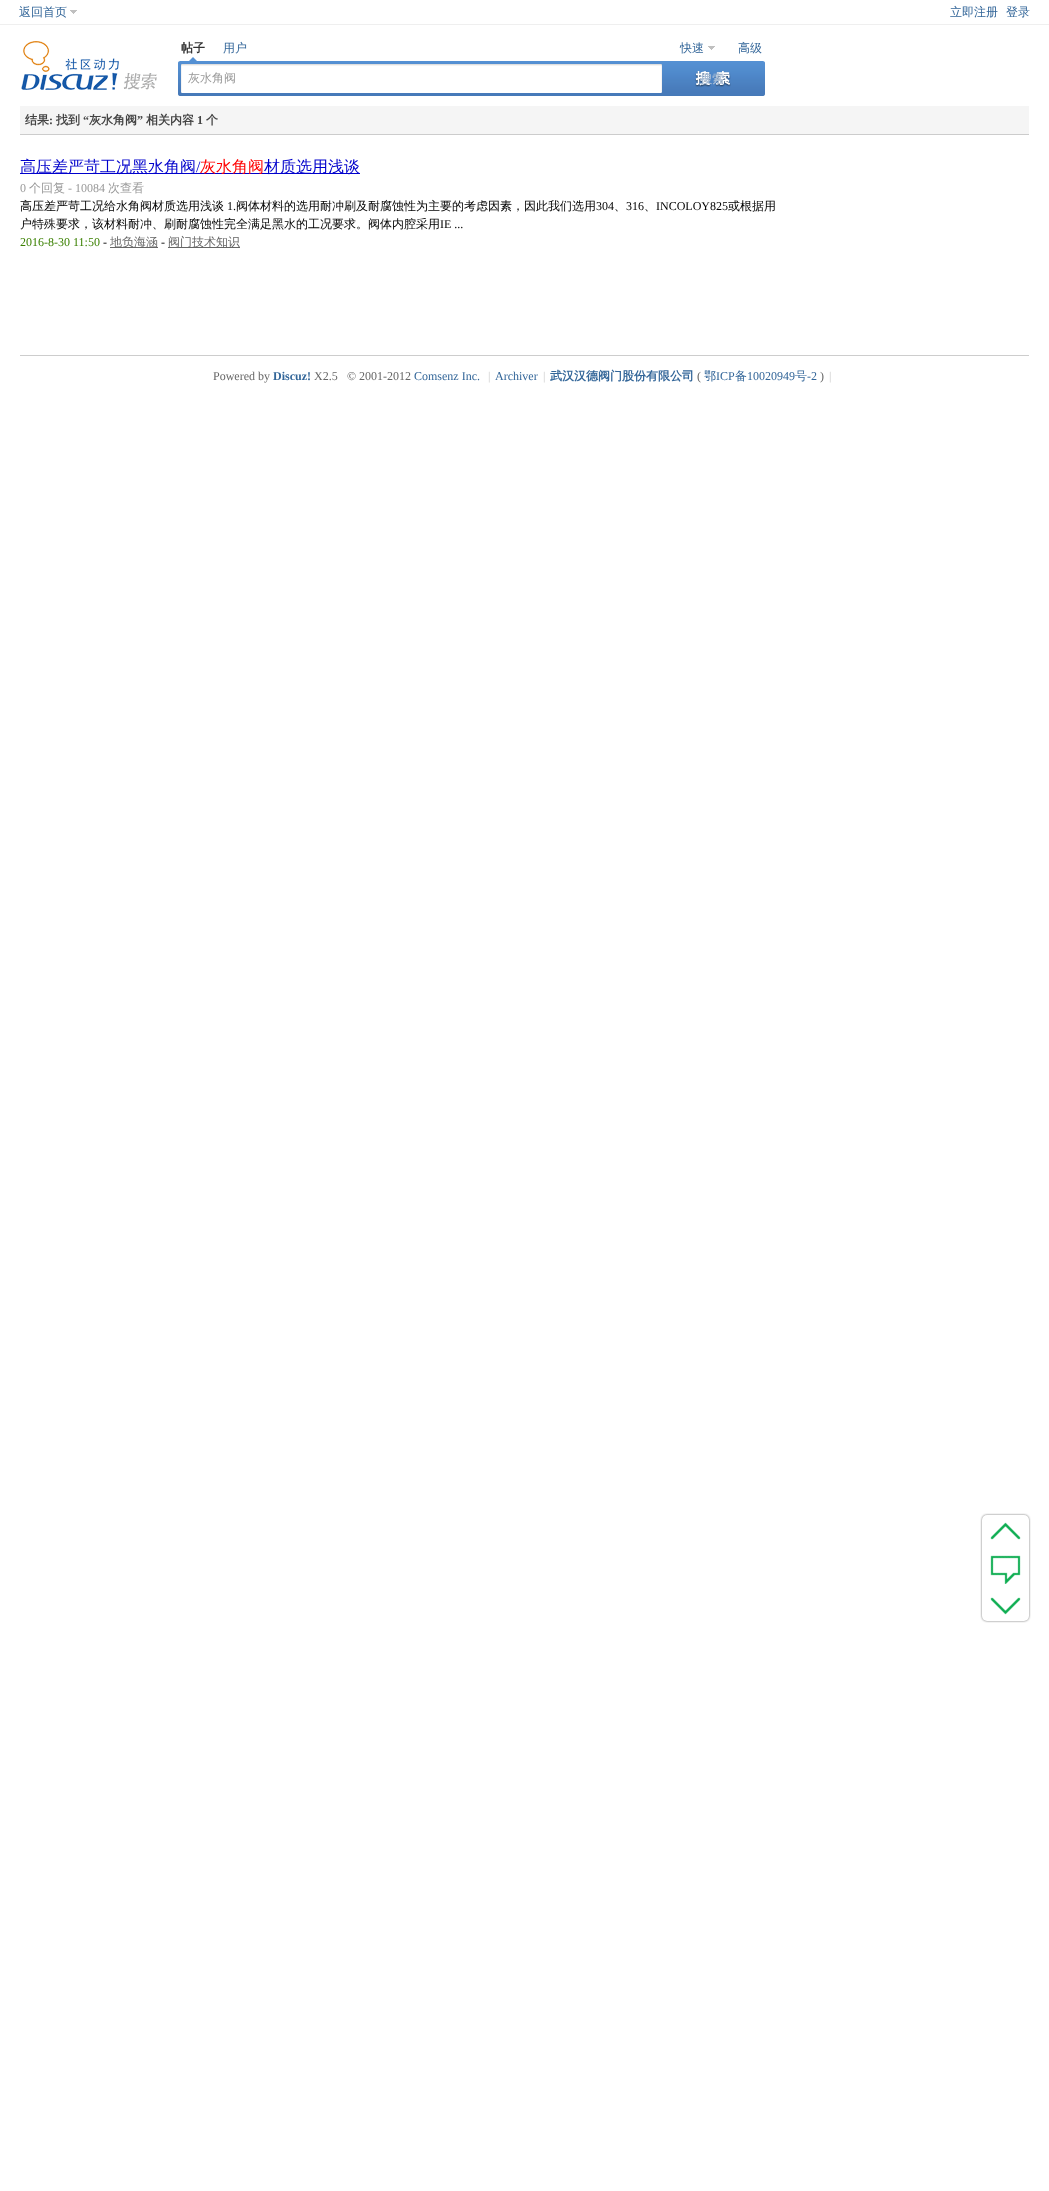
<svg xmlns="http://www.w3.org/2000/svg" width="1049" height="2191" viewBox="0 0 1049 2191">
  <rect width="100%" height="100%" fill="#fff"/>
  <path d="M0 24h1049v1H0z" fill="#efefef"/>
  <image x="70" y="10" width="7" height="4" href="img/1.png"/>
  <image x="21" y="41" width="136" height="49" href="img/2.png"/>
  <image x="189" y="57" width="8" height="4" href="img/3.png"/>
  <image x="708" y="46" width="7" height="4" href="img/1.png"/>
  <image x="182" y="61" width="479" height="35" href="img/4.png"/>
  <image x="178" y="61" width="4" height="35" href="img/5.png"/>
  <image x="661" y="61" width="104" height="35" href="img/6.png"/>
  <path d="M20 106h1009v28H20z" fill="#f5f5f5"/>
  <path d="M20 134h1009v1H20z" fill="#ccc"/>
  <path d="M20 173h340v1H20z" fill="#00c"/>
  <path d="M110 247h48v1H110z" fill="#666"/>
  <path d="M168 247h72v1H168z" fill="#666"/>
  <path d="M20 355h1009v1H20z" fill="#cdcdcd"/>
  <rect x="982" y="1515" width="47" height="106" rx="5" fill="#6e6e6e" filter="blur(1px)"/>
  <rect x="982" y="1515" width="47" height="106" rx="5" fill="#fff"/>
  <image x="990" y="1522" width="31" height="18" href="img/7.png"/>
  <image x="990" y="1555" width="31" height="29" href="img/8.png"/>
  <image x="990" y="1597" width="31" height="18" href="img/9.png"/>
  <g font-family="WenQuanYi Zen Hei" font-size="12" font-weight="500" fill="#369">
    <text x="19" y="16">返回首页</text>
    <text x="950" y="16">立即注册</text>
    <text x="1006" y="16">登录</text>
  </g>
  <text x="181" y="52" font-family="WenQuanYi Zen Hei" font-size="12" font-weight="bold" fill="#333">帖子</text>
  <g font-family="WenQuanYi Zen Hei" font-size="12" font-weight="500" fill="#369">
    <text x="223" y="52">用户</text>
    <text x="680" y="52">快速</text>
    <text x="738" y="52">高级</text>
  </g>
  <text x="188" y="82" font-family="WenQuanYi Zen Hei" font-size="12" font-weight="500" fill="#999">灰水角阀</text>
  <text x="700" y="83" font-family="WenQuanYi Zen Hei" font-size="12" font-weight="bold" fill="#a6bbd4">搜索</text>
  <text x="25" y="124" font-family="WenQuanYi Zen Hei" font-size="12" font-weight="bold" fill="#444">结果</text>
  <text x="49" y="124" font-family="Liberation Serif" font-size="12" font-weight="bold" fill="#444">:</text>
  <text x="56" y="124" font-family="WenQuanYi Zen Hei" font-size="12" font-weight="bold" fill="#444">找到</text>
  <text x="83" y="124" font-family="Liberation Serif" font-size="12" font-weight="bold" fill="#444">“</text>
  <text x="89" y="124" font-family="WenQuanYi Zen Hei" font-size="12" font-weight="bold" fill="#444">灰水角阀</text>
  <text x="137" y="124" font-family="Liberation Serif" font-size="12" font-weight="bold" fill="#444">”</text>
  <text x="146" y="124" font-family="WenQuanYi Zen Hei" font-size="12" font-weight="bold" fill="#444">相关内容</text>
  <text x="197" y="124" font-family="Liberation Serif" font-size="12" font-weight="bold" fill="#444">1</text>
  <text x="206" y="124" font-family="WenQuanYi Zen Hei" font-size="12" font-weight="bold" fill="#444">个</text>
  <text x="20" y="172" font-family="WenQuanYi Zen Hei" font-size="16" font-weight="500" fill="#00c">高压差严苛工况黑水角阀</text>
  <text x="196" y="172" font-family="Liberation Serif" font-size="16" fill="#00c">/</text>
  <text x="200" y="172" font-family="WenQuanYi Zen Hei" font-size="16" font-weight="500" fill="#f00">灰水角阀</text>
  <text x="264" y="172" font-family="WenQuanYi Zen Hei" font-size="16" font-weight="500" fill="#00c">材质选用浅谈</text>
  <text x="20" y="192" font-family="Liberation Serif" font-size="12" fill="#999">0</text>
  <text x="29" y="192" font-family="WenQuanYi Zen Hei" font-size="12" font-weight="500" fill="#999">个回复</text>
  <text x="68" y="192" font-family="Liberation Serif" font-size="12" fill="#999">- 10084</text>
  <text x="108" y="192" font-family="WenQuanYi Zen Hei" font-size="12" font-weight="500" fill="#999">次查看</text>
  <text x="20" y="210" font-family="WenQuanYi Zen Hei" font-size="12" font-weight="500" fill="#000">高压差严苛工况给水角阀材质选用浅谈</text>
  <text x="227" y="210" font-family="Liberation Serif" font-size="12" fill="#000">1.</text>
  <text x="236" y="210" font-family="WenQuanYi Zen Hei" font-size="12" font-weight="500" fill="#000">阀体材料的选用耐冲刷及耐腐蚀性为主要的考虑因素，因此我们选用</text>
  <text x="596" y="210" font-family="Liberation Serif" font-size="12" fill="#000">304</text>
  <text x="614" y="210" font-family="WenQuanYi Zen Hei" font-size="12" font-weight="500" fill="#000">、</text>
  <text x="626" y="210" font-family="Liberation Serif" font-size="12" fill="#000">316</text>
  <text x="644" y="210" font-family="WenQuanYi Zen Hei" font-size="12" font-weight="500" fill="#000">、</text>
  <text x="656" y="210" font-family="Liberation Serif" font-size="12" fill="#000">INCOLOY825</text>
  <g font-family="WenQuanYi Zen Hei" font-size="12" font-weight="500" fill="#000">
    <text x="728" y="210">或根据用</text>
    <text x="20" y="228">户特殊要求，该材料耐冲、刷耐腐蚀性完全满足黑水的工况要求。阀体内腔采用</text>
  </g>
  <text x="440" y="228" font-family="Liberation Serif" font-size="12" fill="#000">IE ...</text>
  <text x="20" y="246" font-family="Liberation Serif" font-size="12" fill="#3a8000">2016-8-30 11:50</text>
  <text x="103" y="246" font-family="Liberation Serif" font-size="12" fill="#000">-</text>
  <text x="110" y="246" font-family="WenQuanYi Zen Hei" font-size="12" font-weight="500" fill="#666">地负海涵</text>
  <text x="161" y="246" font-family="Liberation Serif" font-size="12" fill="#000">-</text>
  <text x="168" y="246" font-family="WenQuanYi Zen Hei" font-size="12" font-weight="500" fill="#666">阀门技术知识</text>
  <text x="213" y="380" font-family="Liberation Serif" font-size="12" fill="#666">Powered by</text>
  <text x="273" y="380" font-family="Liberation Serif" font-size="12" font-weight="bold" fill="#369">Discuz!</text>
  <g font-family="Liberation Serif" font-size="12" fill="#666">
    <text x="314" y="380">X2.5</text>
    <text x="347" y="380">© 2001-2012</text>
  </g>
  <text x="414" y="380" font-family="Liberation Serif" font-size="12" fill="#369">Comsenz Inc.</text>
  <text x="488" y="380" font-family="Liberation Serif" font-size="12" fill="#ccc">|</text>
  <text x="495" y="380" font-family="Liberation Serif" font-size="12" fill="#369">Archiver</text>
  <text x="543" y="380" font-family="Liberation Serif" font-size="12" fill="#ccc">|</text>
  <text x="550" y="380" font-family="WenQuanYi Zen Hei" font-size="12" font-weight="bold" fill="#369">武汉汉德阀门股份有限公司</text>
  <text x="697" y="380" font-family="Liberation Serif" font-size="12" fill="#666">(</text>
  <text x="704" y="380" font-family="WenQuanYi Zen Hei" font-size="12" font-weight="500" fill="#369">鄂</text>
  <text x="716" y="380" font-family="Liberation Serif" font-size="12" fill="#369">ICP</text>
  <text x="735" y="380" font-family="WenQuanYi Zen Hei" font-size="12" font-weight="500" fill="#369">备</text>
  <text x="747" y="380" font-family="Liberation Serif" font-size="12" fill="#369">10020949</text>
  <text x="795" y="380" font-family="WenQuanYi Zen Hei" font-size="12" font-weight="500" fill="#369">号</text>
  <text x="807" y="380" font-family="Liberation Serif" font-size="12" fill="#369">-2</text>
  <text x="820" y="380" font-family="Liberation Serif" font-size="12" fill="#666">)</text>
  <text x="829" y="380" font-family="Liberation Serif" font-size="12" fill="#ccc">|</text>
</svg>
